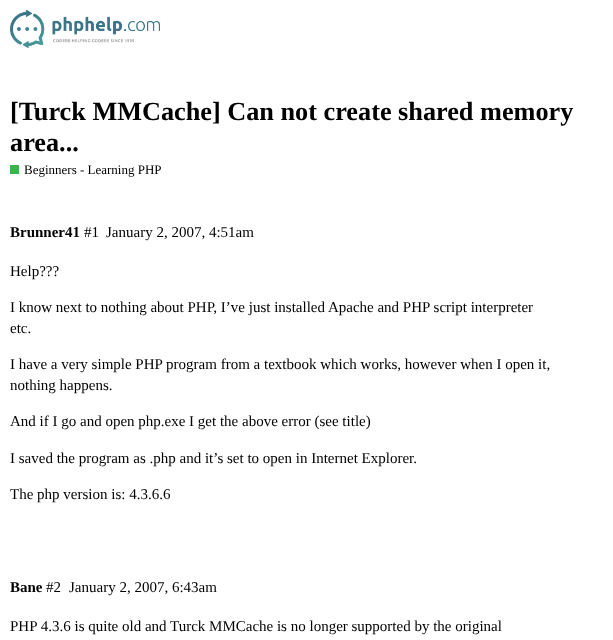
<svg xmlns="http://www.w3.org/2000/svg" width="613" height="640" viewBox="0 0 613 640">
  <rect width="100%" height="100%" fill="#fff"/>
  <image x="10" y="10" width="150" height="38" href="img/1.png"/>
  <path d="M10 165h9v9H10z" fill="#3ab54a"/>
  <g font-family="Liberation Serif" font-size="26.25" font-weight="bold" fill="#000">
    <text x="10" y="120">[Turck MMCache] Can not create shared memory</text>
    <text x="10" y="151">area...</text>
  </g>
  <text x="24" y="174" font-family="Liberation Serif" font-size="13" fill="#000">Beginners - Learning PHP</text>
  <text x="10" y="237" font-family="Liberation Serif" font-size="15" font-weight="bold" fill="#000">Brunner41</text>
  <g font-family="Liberation Serif" font-size="15" fill="#000">
    <text x="84" y="237">#1</text>
    <text x="106" y="237">January 2, 2007, 4:51am</text>
    <text x="10" y="276">Help???</text>
    <text x="10" y="312">I know next to nothing about PHP, I’ve just installed Apache and PHP script interpreter</text>
    <text x="10" y="333">etc.</text>
    <text x="10" y="369">I have a very simple PHP program from a textbook which works, however when I open it,</text>
    <text x="10" y="390">nothing happens.</text>
    <text x="10" y="426">And if I go and open php.exe I get the above error (see title)</text>
    <text x="10" y="463">I saved the program as .php and it’s set to open in Internet Explorer.</text>
    <text x="10" y="499">The php version is: 4.3.6.6</text>
  </g>
  <text x="10" y="592" font-family="Liberation Serif" font-size="15" font-weight="bold" fill="#000">Bane</text>
  <g font-family="Liberation Serif" font-size="15" fill="#000">
    <text x="46" y="592">#2</text>
    <text x="69" y="592">January 2, 2007, 6:43am</text>
    <text x="10" y="631">PHP 4.3.6 is quite old and Turck MMCache is no longer supported by the original</text>
  </g>
</svg>
